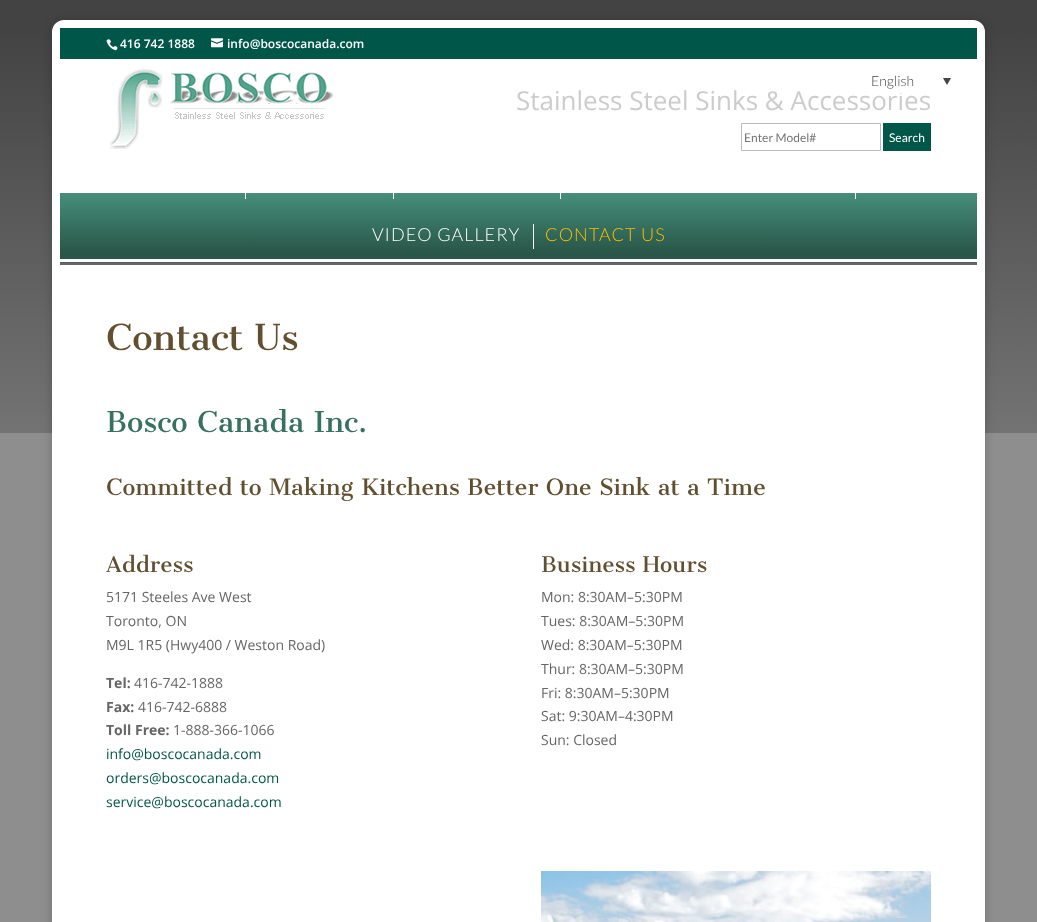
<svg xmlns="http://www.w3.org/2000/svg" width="1037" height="922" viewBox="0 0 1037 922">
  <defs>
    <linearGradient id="g1" gradientUnits="userSpaceOnUse" x1="519" y1="0" x2="519" y2="922"><stop offset="0.03" stop-color="#434343"/><stop offset="0.47" stop-color="#737373"/><stop offset="0.47" stop-color="#8e8e8e"/></linearGradient>
    <linearGradient id="g2" gradientUnits="userSpaceOnUse" x1="519" y1="59" x2="519" y2="259"><stop offset="0.67" stop-color="#fff"/><stop offset="0.67" stop-color="#468f7a"/><stop offset="0.97" stop-color="#295649"/></linearGradient>
    <linearGradient id="g3" gradientUnits="userSpaceOnUse" x1="519" y1="259" x2="519" y2="459"><stop offset="0.67" stop-color="#fff"/><stop offset="0.67" stop-color="#468f7a"/><stop offset="0.97" stop-color="#295649"/></linearGradient>
  </defs>
  <rect width="100%" height="100%" fill="#fff"/>
  <path d="M0 0h1037v922H0z" fill="url(#g1)"/>
  <rect x="52" y="20" width="933" height="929" rx="12" fill="#00000033" filter="blur(5px)"/>
  <rect x="56" y="24" width="925" height="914" rx="8" fill="none" stroke="#fff" stroke-width="8"/>
  <path d="M60 28h917v31H60z" fill="#005649"/>
  <image x="106" y="39" width="12" height="12" href="img/1.png"/>
  <image x="211" y="38" width="12" height="10" href="img/2.png"/>
  <path d="M60 262h917v1H60z" fill="#5c5c5c"/>
  <path d="M60 59h917v200H60z" fill="url(#g2)"/>
  <path d="M60 259h917v3H60z" fill="url(#g3)"/>
  <image x="109" y="69" width="225" height="80" href="img/3.png"/>
  <path d="M943 78H951L947 85Z" fill="#444"/>
  <path d="M741.5 123.5h139v27H741.5z" fill="none" stroke="#bbb"/>
  <path d="M883 123h48v28H883z" fill="#005649"/>
  <path d="M245 193h1v6H245z" fill="#fff"/>
  <path d="M393 193h1v6H393z" fill="#fff"/>
  <path d="M560 193h1v6H560z" fill="#fff"/>
  <path d="M855 193h1v6H855z" fill="#fff"/>
  <path d="M533 224h1v25H533z" fill="#fff"/>
  <path d="M60 263h917v2H60z" fill="#666"/>
  <path d="M60 265h917v657H60z" fill="#fff"/>
  <image x="541" y="871" width="390" height="51" href="img/4.png"/>
  <g font-family="Open Sans" font-size="12" font-weight="600" fill="#fff">
    <text x="120" y="48">416 742 1888</text>
    <text x="227" y="48">info@boscocanada.com</text>
  </g>
  <text x="871" y="86" font-family="Lato" font-size="14" font-weight="300" fill="#444">English</text>
  <text x="516" y="110" font-family="Open Sans" font-size="26" fill="#ccc">Stainless Steel Sinks &amp; Accessories</text>
  <path d="M899 91h4v2H899z" fill="#fff"/>
  <text x="744" y="142" font-family="Lato" font-size="12" fill="#757575">Enter Model#</text>
  <text x="889" y="142" font-family="Lato" font-size="12" fill="#fff">Search</text>
  <text x="372" y="241" font-family="Lato" font-size="18" font-weight="300" letter-spacing="1" fill="#fff">VIDEO GALLERY</text>
  <text x="545" y="241" font-family="Lato" font-size="18" font-weight="300" letter-spacing="1" fill="#ffbf00">CONTACT US</text>
  <text x="106" y="350" font-family="Cantata One" font-size="35" fill="#624f2f">Contact Us</text>
  <text x="106" y="432" font-family="Cantata One" font-size="28" fill="#377160">Bosco Canada Inc.</text>
  <text x="106" y="495" font-family="Cantata One" font-size="22" fill="#624f2f">Committed to Making Kitchens Better One Sink at a Time</text>
  <text x="106" y="572" font-family="Cantata One" font-size="21" fill="#624f2f">Address</text>
  <g font-family="Open Sans" font-size="14" fill="#666">
    <text x="106" y="602">5171 Steeles Ave West</text>
    <text x="106" y="626">Toronto, ON</text>
    <text x="106" y="650">M9L 1R5 (Hwy400 / Weston Road)</text>
  </g>
  <text x="106" y="688" font-family="Open Sans" font-size="14" font-weight="bold" fill="#666">Tel:</text>
  <text x="134" y="688" font-family="Open Sans" font-size="14" fill="#666">416-742-1888</text>
  <text x="106" y="712" font-family="Open Sans" font-size="14" font-weight="bold" fill="#666">Fax:</text>
  <text x="138" y="712" font-family="Open Sans" font-size="14" fill="#666">416-742-6888</text>
  <text x="106" y="735" font-family="Open Sans" font-size="14" font-weight="bold" fill="#666">Toll Free:</text>
  <text x="173" y="735" font-family="Open Sans" font-size="14" fill="#666">1-888-366-1066</text>
  <g font-family="Open Sans" font-size="14" fill="#005649">
    <text x="106" y="759">info@boscocanada.com</text>
    <text x="106" y="783">orders@boscocanada.com</text>
    <text x="106" y="807">service@boscocanada.com</text>
  </g>
  <text x="541" y="572" font-family="Cantata One" font-size="21" fill="#624f2f">Business Hours</text>
  <g font-family="Open Sans" font-size="14" fill="#666">
    <text x="541" y="602">Mon: 8:30AM–5:30PM</text>
    <text x="541" y="626">Tues: 8:30AM–5:30PM</text>
    <text x="541" y="650">Wed: 8:30AM–5:30PM</text>
    <text x="541" y="674">Thur: 8:30AM–5:30PM</text>
    <text x="541" y="698">Fri: 8:30AM–5:30PM</text>
    <text x="541" y="721">Sat: 9:30AM–4:30PM</text>
    <text x="541" y="745">Sun: Closed</text>
  </g>
</svg>
